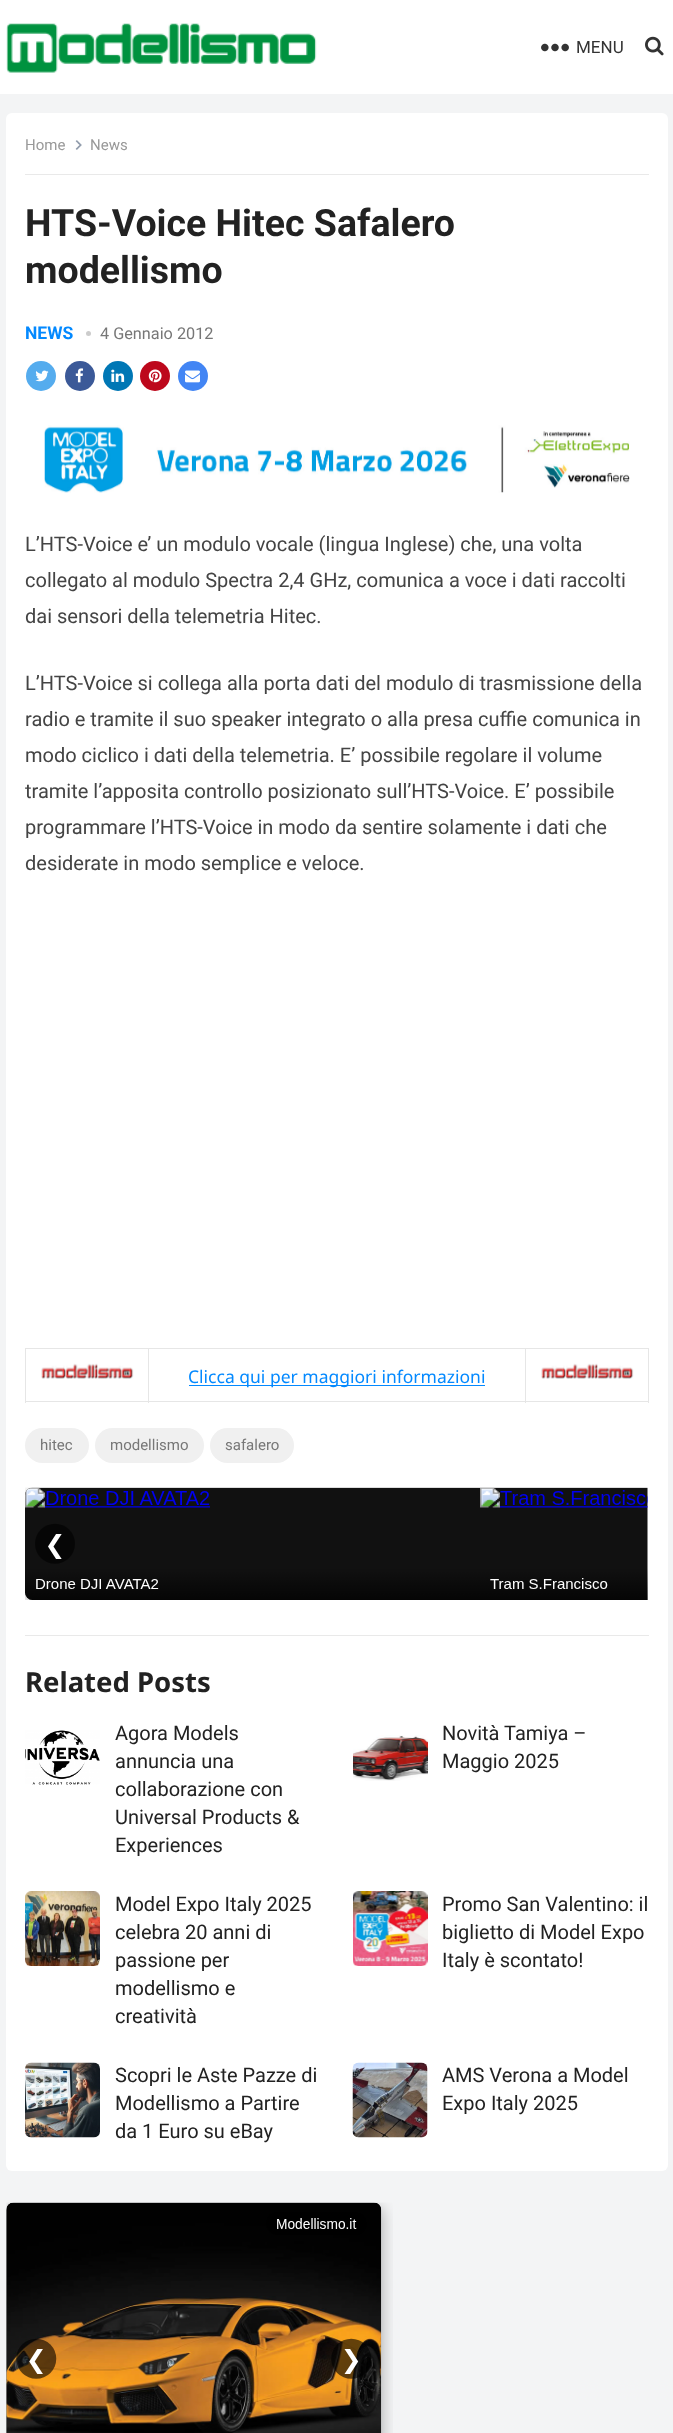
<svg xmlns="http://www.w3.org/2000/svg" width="673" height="2433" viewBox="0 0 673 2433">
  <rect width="100%" height="100%" fill="#f3f4f5"/>
  <path d="M0 0h673v94H0z" fill="#fff"/>
  <image x="6" y="23" width="311" height="50" href="img/1.png"/>
  <image x="541" y="43" width="28" height="9" href="img/2.png"/>
  <image x="645" y="36" width="19" height="20" href="img/3.png"/>
  <rect x="6" y="113" width="662" height="2058" rx="6" fill="#fff"/>
  <path d="M25 174h624v1H25z" fill="#e9e9e9"/>
  <image x="75" y="140" width="7" height="10" href="img/4.png"/>
  <circle cx="88.5" cy="333.5" r="2.5" fill="#ccc"/>
  <circle cx="41" cy="376" r="15" fill="#55acee"/>
  <image x="35" y="370" width="14" height="12" href="img/5.png"/>
  <circle cx="80" cy="376" r="15" fill="#3b5998"/>
  <image x="75" y="368" width="9" height="15" href="img/6.png"/>
  <circle cx="118" cy="376" r="15" fill="#0077b5"/>
  <image x="111" y="369" width="14" height="13" href="img/7.png"/>
  <circle cx="155" cy="376" r="15" fill="#bd081c"/>
  <image x="148" y="369" width="14" height="14" href="img/8.png"/>
  <circle cx="193" cy="376" r="15" fill="#4285f4"/>
  <image x="185" y="370" width="15" height="13" href="img/9.png"/>
  <image x="44" y="425" width="586" height="68" href="img/10.png"/>
  <path d="M525 1348h124v1H525z" fill="#e6e6e6"/>
  <path d="M648 1348h1v55H648z" fill="#e6e6e6"/>
  <path d="M525 1401h124v1H525z" fill="#e6e6e6"/>
  <path d="M525 1348h1v55H525z" fill="#e6e6e6"/>
  <path d="M148 1348h378v1H148z" fill="#e6e6e6"/>
  <path d="M148 1401h378v1H148z" fill="#e6e6e6"/>
  <path d="M148 1348h1v55H148z" fill="#e6e6e6"/>
  <path d="M25 1348h124v1H25z" fill="#e6e6e6"/>
  <path d="M25 1401h124v1H25z" fill="#e6e6e6"/>
  <path d="M25 1348h1v55H25z" fill="#e6e6e6"/>
  <image x="41" y="1363" width="93" height="16" href="img/11.png"/>
  <path d="M189 1385h296v1H189z" fill="#0389ff"/>
  <image x="541" y="1363" width="93" height="16" href="img/12.png"/>
  <rect x="25" y="1428" width="64" height="35" rx="17.5" fill="#f0f0f0"/>
  <rect x="95" y="1428" width="109" height="35" rx="17.5" fill="#f0f0f0"/>
  <rect x="210" y="1428" width="84" height="35" rx="17.5" fill="#f0f0f0"/>
  <image x="25" y="1487" width="623" height="113" href="img/13.png"/>
  <path d="M25 1635h624v1H25z" fill="#e9e9e9"/>
  <image x="25" y="1730" width="75" height="55" href="img/14.png"/>
  <image x="353" y="1735" width="75" height="46" href="img/15.png"/>
  <image x="25" y="1891" width="75" height="75" href="img/16.png"/>
  <image x="353" y="1891" width="75" height="75" href="img/17.png"/>
  <image x="25" y="2062" width="75" height="76" href="img/18.png"/>
  <image x="352" y="2062" width="76" height="76" href="img/19.png"/>
  <image x="6" y="2202" width="387" height="231" href="img/20.png"/>
  <text x="576" y="53" font-family="Roboto" font-size="17" fill="#333">MENU</text>
  <g font-family="Roboto" font-size="15" fill="#999">
    <text x="25" y="150">Home</text>
    <text x="90" y="150">News</text>
  </g>
  <g font-family="Roboto" font-size="37.5" font-weight="bold" fill="#222">
    <text x="25" y="236">HTS-Voice Hitec Safalero</text>
    <text x="25" y="283">modellismo</text>
  </g>
  <text x="25" y="339" font-family="Roboto" font-size="17.5" font-weight="bold" fill="#0389ff">NEWS</text>
  <text x="100" y="339" font-family="Roboto" font-size="16.25" fill="#777">4 Gennaio 2012</text>
  <g font-family="Roboto" font-size="20" fill="#444">
    <text x="25" y="551">L’HTS-Voice e’ un modulo vocale (lingua Inglese) che, una volta</text>
    <text x="25" y="587">collegato al modulo Spectra 2,4 GHz, comunica a voce i dati raccolti</text>
    <text x="25" y="623">dai sensori della telemetria Hitec.</text>
    <text x="25" y="690">L’HTS-Voice si collega alla porta dati del modulo di trasmissione della</text>
    <text x="25" y="726">radio e tramite il suo speaker integrato o alla presa cuffie comunica in</text>
    <text x="25" y="762">modo ciclico i dati della telemetria. E’ possibile regolare il volume</text>
    <text x="25" y="798">tramite l’apposita controllo posizionato sull’HTS-Voice. E’ possibile</text>
    <text x="25" y="834">programmare l’HTS-Voice in modo da sentire solamente i dati che</text>
    <text x="25" y="870">desiderate in modo semplice e veloce.</text>
  </g>
  <text x="188" y="1383" font-family="Noto Sans" font-size="17.5" fill="#0389ff">Clicca qui per maggiori informazioni</text>
  <g font-family="Roboto" font-size="15" fill="#777">
    <text x="40" y="1450">hitec</text>
    <text x="110" y="1450">modellismo</text>
    <text x="225" y="1450">safalero</text>
  </g>
  <text x="25" y="1692" font-family="Noto Sans" font-size="27.5" font-weight="bold" fill="#222">Related Posts</text>
  <g font-family="Roboto" font-size="20" fill="#222">
    <text x="115" y="1740">Agora Models</text>
    <text x="115" y="1768">annuncia una</text>
    <text x="115" y="1796">collaborazione con</text>
    <text x="115" y="1824">Universal Products &amp;</text>
    <text x="115" y="1852">Experiences</text>
    <text x="442" y="1740">Novità Tamiya –</text>
    <text x="442" y="1768">Maggio 2025</text>
    <text x="115" y="1911">Model Expo Italy 2025</text>
    <text x="115" y="1939">celebra 20 anni di</text>
    <text x="115" y="1967">passione per</text>
    <text x="115" y="1995">modellismo e</text>
    <text x="115" y="2023">creatività</text>
    <text x="442" y="1911">Promo San Valentino: il</text>
    <text x="442" y="1939">biglietto di Model Expo</text>
    <text x="442" y="1967">Italy è scontato!</text>
    <text x="115" y="2082">Scopri le Aste Pazze di</text>
    <text x="115" y="2110">Modellismo a Partire</text>
    <text x="115" y="2138">da 1 Euro su eBay</text>
    <text x="442" y="2082">AMS Verona a Model</text>
    <text x="442" y="2110">Expo Italy 2025</text>
  </g>
</svg>
